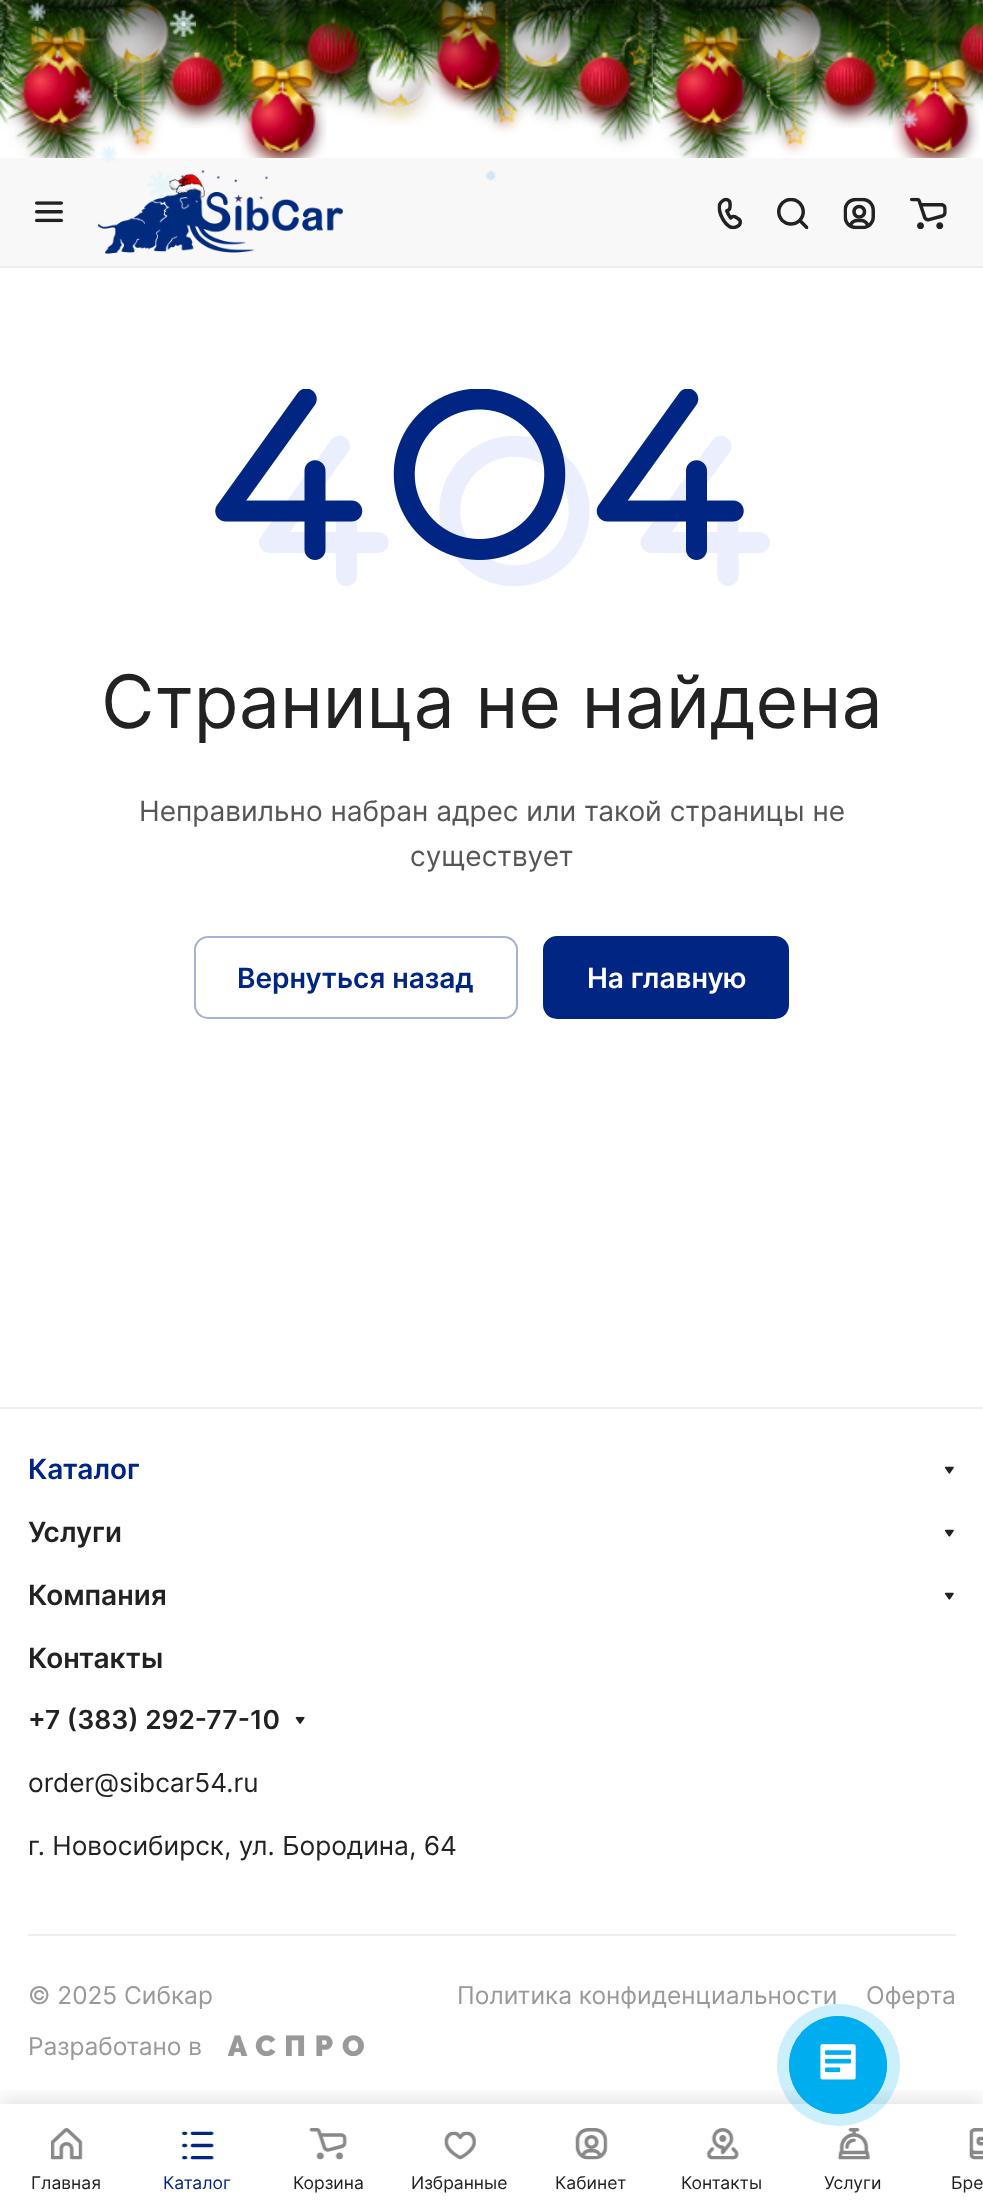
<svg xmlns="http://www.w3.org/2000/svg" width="983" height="2209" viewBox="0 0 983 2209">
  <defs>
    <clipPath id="clip1"><path d="M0 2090h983v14H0z"/></clipPath>
  </defs>
  <rect width="100%" height="100%" fill="#fff"/>
  <image x="0" y="0" width="983" height="158" href="img/9.png"/>
  <image x="11" y="0" width="91" height="143" href="img/11.png"/>
  <image x="0" y="0" width="44" height="124" href="img/10.png"/>
  <image x="95" y="0" width="85" height="82" href="img/13.png"/>
  <image x="43" y="0" width="107" height="47" href="img/12.png"/>
  <image x="239" y="0" width="88" height="158" href="img/14.png"/>
  <image x="297" y="0" width="71" height="94" href="img/15.png"/>
  <image x="357" y="10" width="79" height="116" href="img/21.png"/>
  <image x="309" y="0" width="50" height="54" href="img/16.png"/>
  <image x="426" y="0" width="85" height="111" href="img/18.png"/>
  <image x="358" y="0" width="89" height="88" href="img/17.png"/>
  <image x="503" y="0" width="80" height="86" href="img/19.png"/>
  <image x="160" y="16" width="72" height="112" href="img/20.png"/>
  <image x="568" y="17" width="73" height="111" href="img/24.png"/>
  <image x="506" y="0" width="137" height="49" href="img/22.png"/>
  <image x="642" y="0" width="11" height="121" href="img/23.png"/>
  <image x="664" y="0" width="91" height="143" href="img/26.png"/>
  <image x="652" y="0" width="45" height="124" href="img/25.png"/>
  <image x="747" y="0" width="86" height="82" href="img/28.png"/>
  <image x="696" y="0" width="107" height="47" href="img/27.png"/>
  <image x="892" y="0" width="88" height="158" href="img/29.png"/>
  <image x="950" y="15" width="33" height="79" href="img/32.png"/>
  <image x="962" y="0" width="21" height="42" href="img/30.png"/>
  <image x="813" y="16" width="72" height="112" href="img/31.png"/>
  <path d="M0 -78h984v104H0z" fill="#000000bf" filter="blur(26px)"/>
  <image x="27" y="1" width="19" height="20" href="img/1.png"/>
  <image x="169" y="10" width="27" height="27" href="img/2.png"/>
  <image x="465" y="0" width="18" height="18" href="img/3.png"/>
  <image x="73" y="85" width="20" height="21" href="img/4.png"/>
  <image x="899" y="108" width="20" height="21" href="img/5.png"/>
  <path d="M0 158h983v108H0z" fill="#f8f8f8"/>
  <image x="100" y="144" width="17" height="19" href="img/6.png"/>
  <image x="98" y="169" width="245" height="85" href="img/34.png"/>
  <image x="147" y="171" width="26" height="27" href="img/7.png"/>
  <image x="485" y="170" width="11" height="11" href="img/8.png"/>
  <path d="M0 266V268H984V159V266Z" fill="#ededed"/>
  <image x="35" y="201" width="28" height="22" href="img/33.png"/>
  <image x="717" y="197" width="25" height="33" href="img/35.png"/>
  <image x="777" y="197" width="32" height="33" href="img/36.png"/>
  <image x="843" y="197" width="32" height="33" href="img/37.png"/>
  <image x="910" y="197" width="37" height="33" href="img/38.png"/>
  <image x="215" y="389" width="555" height="197" href="img/39.png"/>
  <rect x="195" y="937" width="322" height="81" rx="13" fill="none" stroke="#a6b2d3" stroke-width="2"/>
  <rect x="544" y="937" width="244" height="81" rx="13" fill="#002582" stroke="#002582" stroke-width="2"/>
  <path d="M0 1407h983v2H0z" fill="#ededed"/>
  <image x="944" y="1466" width="10" height="8" href="img/40.png"/>
  <image x="944" y="1529" width="10" height="8" href="img/40.png"/>
  <image x="944" y="1592" width="10" height="8" href="img/40.png"/>
  <image x="295" y="1716" width="10" height="8" href="img/41.png"/>
  <path d="M28 1934h928v2H28z" fill="#ededed"/>
  <image x="228" y="2035" width="136" height="21" href="img/42.png"/>
  <g clip-path="url(#clip1)">
    <path d="M0 2098h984v107H0z" fill="#0000001a" filter="blur(9px)"/>
  </g>
  <image x="51" y="2128" width="32" height="32" href="img/44.png"/>
  <image x="181" y="2131" width="33" height="29" href="img/45.png"/>
  <image x="309" y="2128" width="38" height="32" href="img/46.png"/>
  <image x="444" y="2131" width="32" height="29" href="img/47.png"/>
  <image x="575" y="2128" width="33" height="32" href="img/48.png"/>
  <image x="706" y="2128" width="33" height="32" href="img/49.png"/>
  <image x="837" y="2128" width="33" height="32" href="img/50.png"/>
  <image x="969" y="2128" width="14" height="32" href="img/51.png"/>
  <text x="101" y="728" font-family="Inter" font-size="73.5" fill="#222">Страница не найдена</text>
  <g font-family="Inter" font-size="28" fill="#555">
    <text x="139" y="821">Неправильно набран адрес или такой страницы не</text>
    <text x="410" y="866">существует</text>
  </g>
  <text x="237" y="988" font-family="Inter" font-size="28" font-weight="600" fill="#002582">Вернуться назад</text>
  <text x="587" y="988" font-family="Inter" font-size="28" font-weight="600" fill="#fff">На главную</text>
  <text x="28" y="1479" font-family="Inter" font-size="28" font-weight="600" fill="#002582">Каталог</text>
  <g font-family="Inter" font-size="28" font-weight="600" fill="#222">
    <text x="28" y="1542">Услуги</text>
    <text x="28" y="1605">Компания</text>
    <text x="28" y="1668">Контакты</text>
  </g>
  <text x="28" y="1729" font-family="Inter" font-size="26.25" font-weight="600" fill="#222">+7 (383) 292-77-10</text>
  <g font-family="Inter" font-size="26.25" fill="#222">
    <text x="28" y="1792">order@sibcar54.ru</text>
    <text x="28" y="1855">г. Новосибирск, ул. Бородина, 64</text>
  </g>
  <g font-family="Inter" font-size="24.5" fill="#999">
    <text x="28" y="2004">© 2025 Сибкар</text>
    <text x="457" y="2004">Политика конфиденциальности</text>
    <text x="866" y="2004">Оферта</text>
    <text x="28" y="2055">Разработано в</text>
  </g>
  <rect x="777" y="2004" width="123" height="122" rx="61" fill="#00aeef33"/>
  <circle cx="838" cy="2065" r="48.5" fill="none" stroke="#00aeef"/>
  <circle cx="838" cy="2065" r="49" fill="#00aeef"/>
  <image x="820" y="2044" width="36" height="36" href="img/43.png"/>
  <text x="31" y="2189" font-family="Inter" font-size="17.5" fill="#222">Главная</text>
  <text x="163" y="2189" font-family="Inter" font-size="17.5" fill="#002582">Каталог</text>
  <g font-family="Inter" font-size="17.5" fill="#222">
    <text x="293" y="2189">Корзина</text>
    <text x="411" y="2189">Избранные</text>
    <text x="555" y="2189">Кабинет</text>
    <text x="681" y="2189">Контакты</text>
    <text x="824" y="2189">Услуги</text>
    <text x="951" y="2189">Бре</text>
  </g>
</svg>
